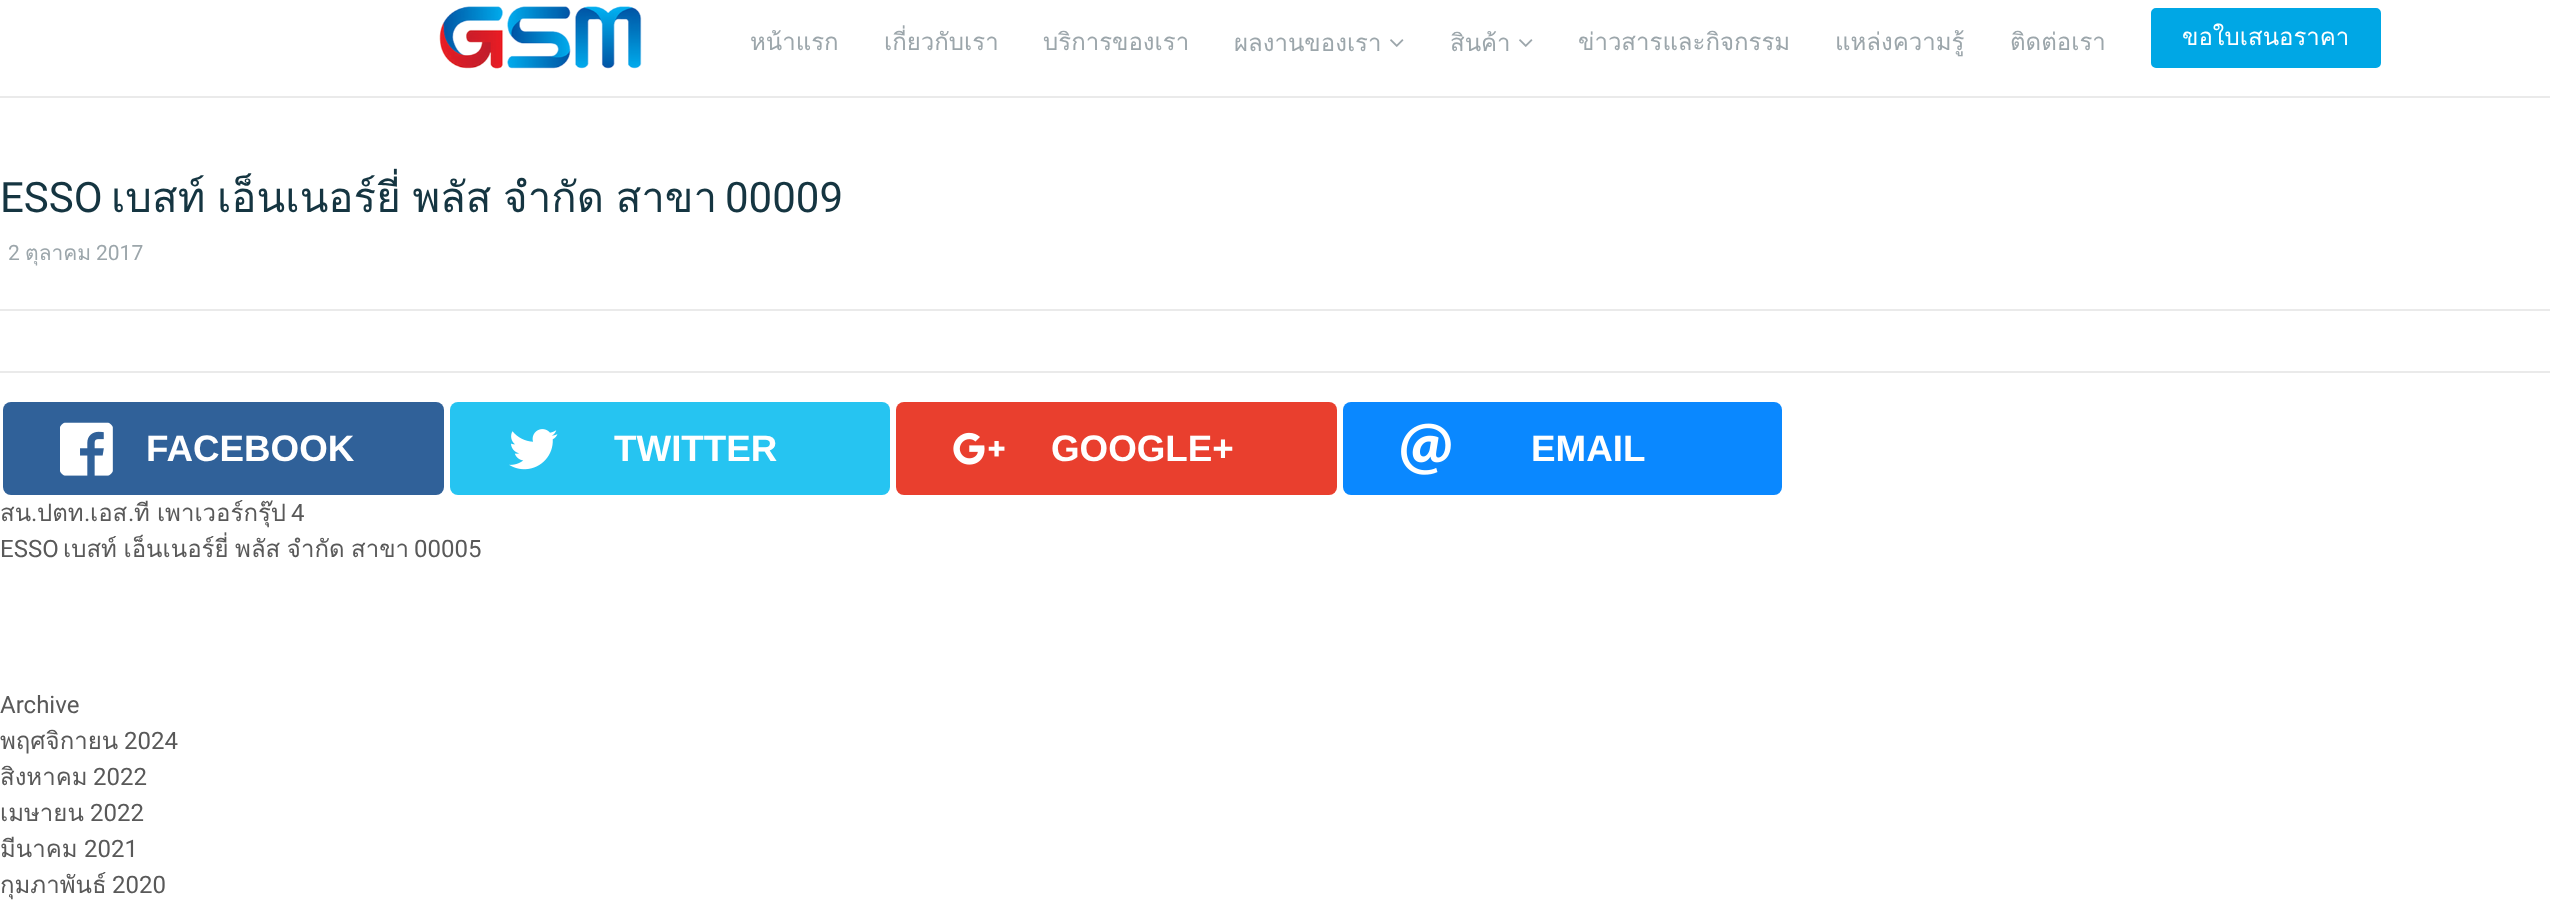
<svg xmlns="http://www.w3.org/2000/svg" width="2550" height="907" viewBox="0 0 2550 907">
  <rect width="100%" height="100%" fill="#fff"/>
  <path d="M0 96h2550v2H0z" fill="#eaeaea"/>
  <image x="439" y="6" width="203" height="63" href="img/1.png"/>
  <image x="1390" y="39" width="14" height="8" href="img/2.png"/>
  <image x="1519" y="39" width="14" height="8" href="img/2.png"/>
  <rect x="2152" y="9" width="228" height="58" rx="4" fill="#00a7e5" stroke="#00a7e5" stroke-width="2"/>
  <path d="M0 309h2550v2H0z" fill="#eaeaea"/>
  <path d="M0 371h2550v2H0z" fill="#eaeaea"/>
  <rect x="3" y="402" width="441" height="93" rx="8" fill="#306199"/>
  <image x="60" y="422" width="53" height="54" href="img/3.png"/>
  <rect x="450" y="402" width="440" height="93" rx="8" fill="#26c4f1"/>
  <image x="509" y="429" width="49" height="41" href="img/4.png"/>
  <rect x="896" y="402" width="441" height="93" rx="8" fill="#e93f2e"/>
  <image x="953" y="432" width="52" height="33" href="img/5.png"/>
  <rect x="1343" y="402" width="439" height="93" rx="8" fill="#0a88ff"/>
  <image x="1401" y="423" width="50" height="52" href="img/6.png"/>
  <g font-family="Loma" font-size="24" fill="#9ca6ab">
    <text x="750" y="50">หน้าแรก</text>
    <text x="884" y="50">เกี่ยวกับเรา</text>
    <text x="1043" y="50">บริการของเรา</text>
    <text x="1234" y="51">ผลงานของเรา</text>
    <text x="1450" y="51">สินค้า</text>
    <text x="1578" y="50">ข่าวสารและกิจกรรม</text>
    <text x="1835" y="50">แหล่งความรู้</text>
    <text x="2010" y="50">ติดต่อเรา</text>
  </g>
  <text x="2182" y="45" font-family="Loma" font-size="24" fill="#fff">ขอใบเสนอราคา</text>
  <text x="0" y="212" font-family="Roboto" font-size="42" fill="#153541">ESSO</text>
  <text x="111" y="212" word-spacing="-2.5" font-family="Loma" font-size="42" fill="#153541">เบสท์ เอ็นเนอร์ยี่ พลัส จำกัด สาขา</text>
  <text x="725" y="212" font-family="Roboto" font-size="42" fill="#153541">00009</text>
  <text x="8" y="260" font-family="Roboto" font-size="21" fill="#9ca6ab">2</text>
  <text x="25" y="260" font-family="Loma" font-size="21" fill="#9ca6ab">ตุลาคม</text>
  <text x="96" y="260" font-family="Roboto" font-size="21" fill="#9ca6ab">2017</text>
  <g font-family="Liberation Sans" font-size="36.75" font-weight="bold" fill="#fff">
    <text x="146" y="461">FACEBOOK</text>
    <text x="614" y="461">TWITTER</text>
    <text x="1051" y="461">GOOGLE+</text>
    <text x="1531" y="461">EMAIL</text>
  </g>
  <text x="0" y="521" font-family="Loma" font-size="24" fill="#595959">สน</text>
  <text x="31" y="521" font-family="Roboto" font-size="24" fill="#595959">.</text>
  <text x="37" y="521" font-family="Loma" font-size="24" fill="#595959">ปตท</text>
  <text x="84" y="521" font-family="Roboto" font-size="24" fill="#595959">.</text>
  <text x="90" y="521" font-family="Loma" font-size="24" fill="#595959">เอส</text>
  <g font-family="Roboto" font-size="24" fill="#595959">
    <text x="291" y="521">4</text>
    <text x="128" y="521">.</text>
  </g>
  <text x="134" y="521" word-spacing="-1" font-family="Loma" font-size="24" fill="#595959">ที เพาเวอร์กรุ๊ป</text>
  <text x="0" y="557" font-family="Roboto" font-size="24" fill="#595959">ESSO</text>
  <text x="63" y="557" word-spacing="-1.5" font-family="Loma" font-size="24" fill="#595959">เบสท์ เอ็นเนอร์ยี่ พลัส จำกัด สาขา</text>
  <g font-family="Roboto" font-size="24" fill="#595959">
    <text x="414" y="557">00005</text>
    <text x="0" y="713">Archive</text>
  </g>
  <text x="0" y="749" font-family="Loma" font-size="24" fill="#595959">พฤศจิกายน</text>
  <text x="124" y="749" font-family="Roboto" font-size="24" fill="#595959">2024</text>
  <text x="0" y="785" font-family="Loma" font-size="24" fill="#595959">สิงหาคม</text>
  <text x="93" y="785" font-family="Roboto" font-size="24" fill="#595959">2022</text>
  <text x="0" y="821" font-family="Loma" font-size="24" fill="#595959">เมษายน</text>
  <text x="90" y="821" font-family="Roboto" font-size="24" fill="#595959">2022</text>
  <text x="0" y="857" font-family="Loma" font-size="24" fill="#595959">มีนาคม</text>
  <text x="84" y="857" font-family="Roboto" font-size="24" fill="#595959">2021</text>
  <text x="0" y="893" font-family="Loma" font-size="24" fill="#595959">กุมภาพันธ์</text>
  <text x="112" y="893" font-family="Roboto" font-size="24" fill="#595959">2020</text>
</svg>
